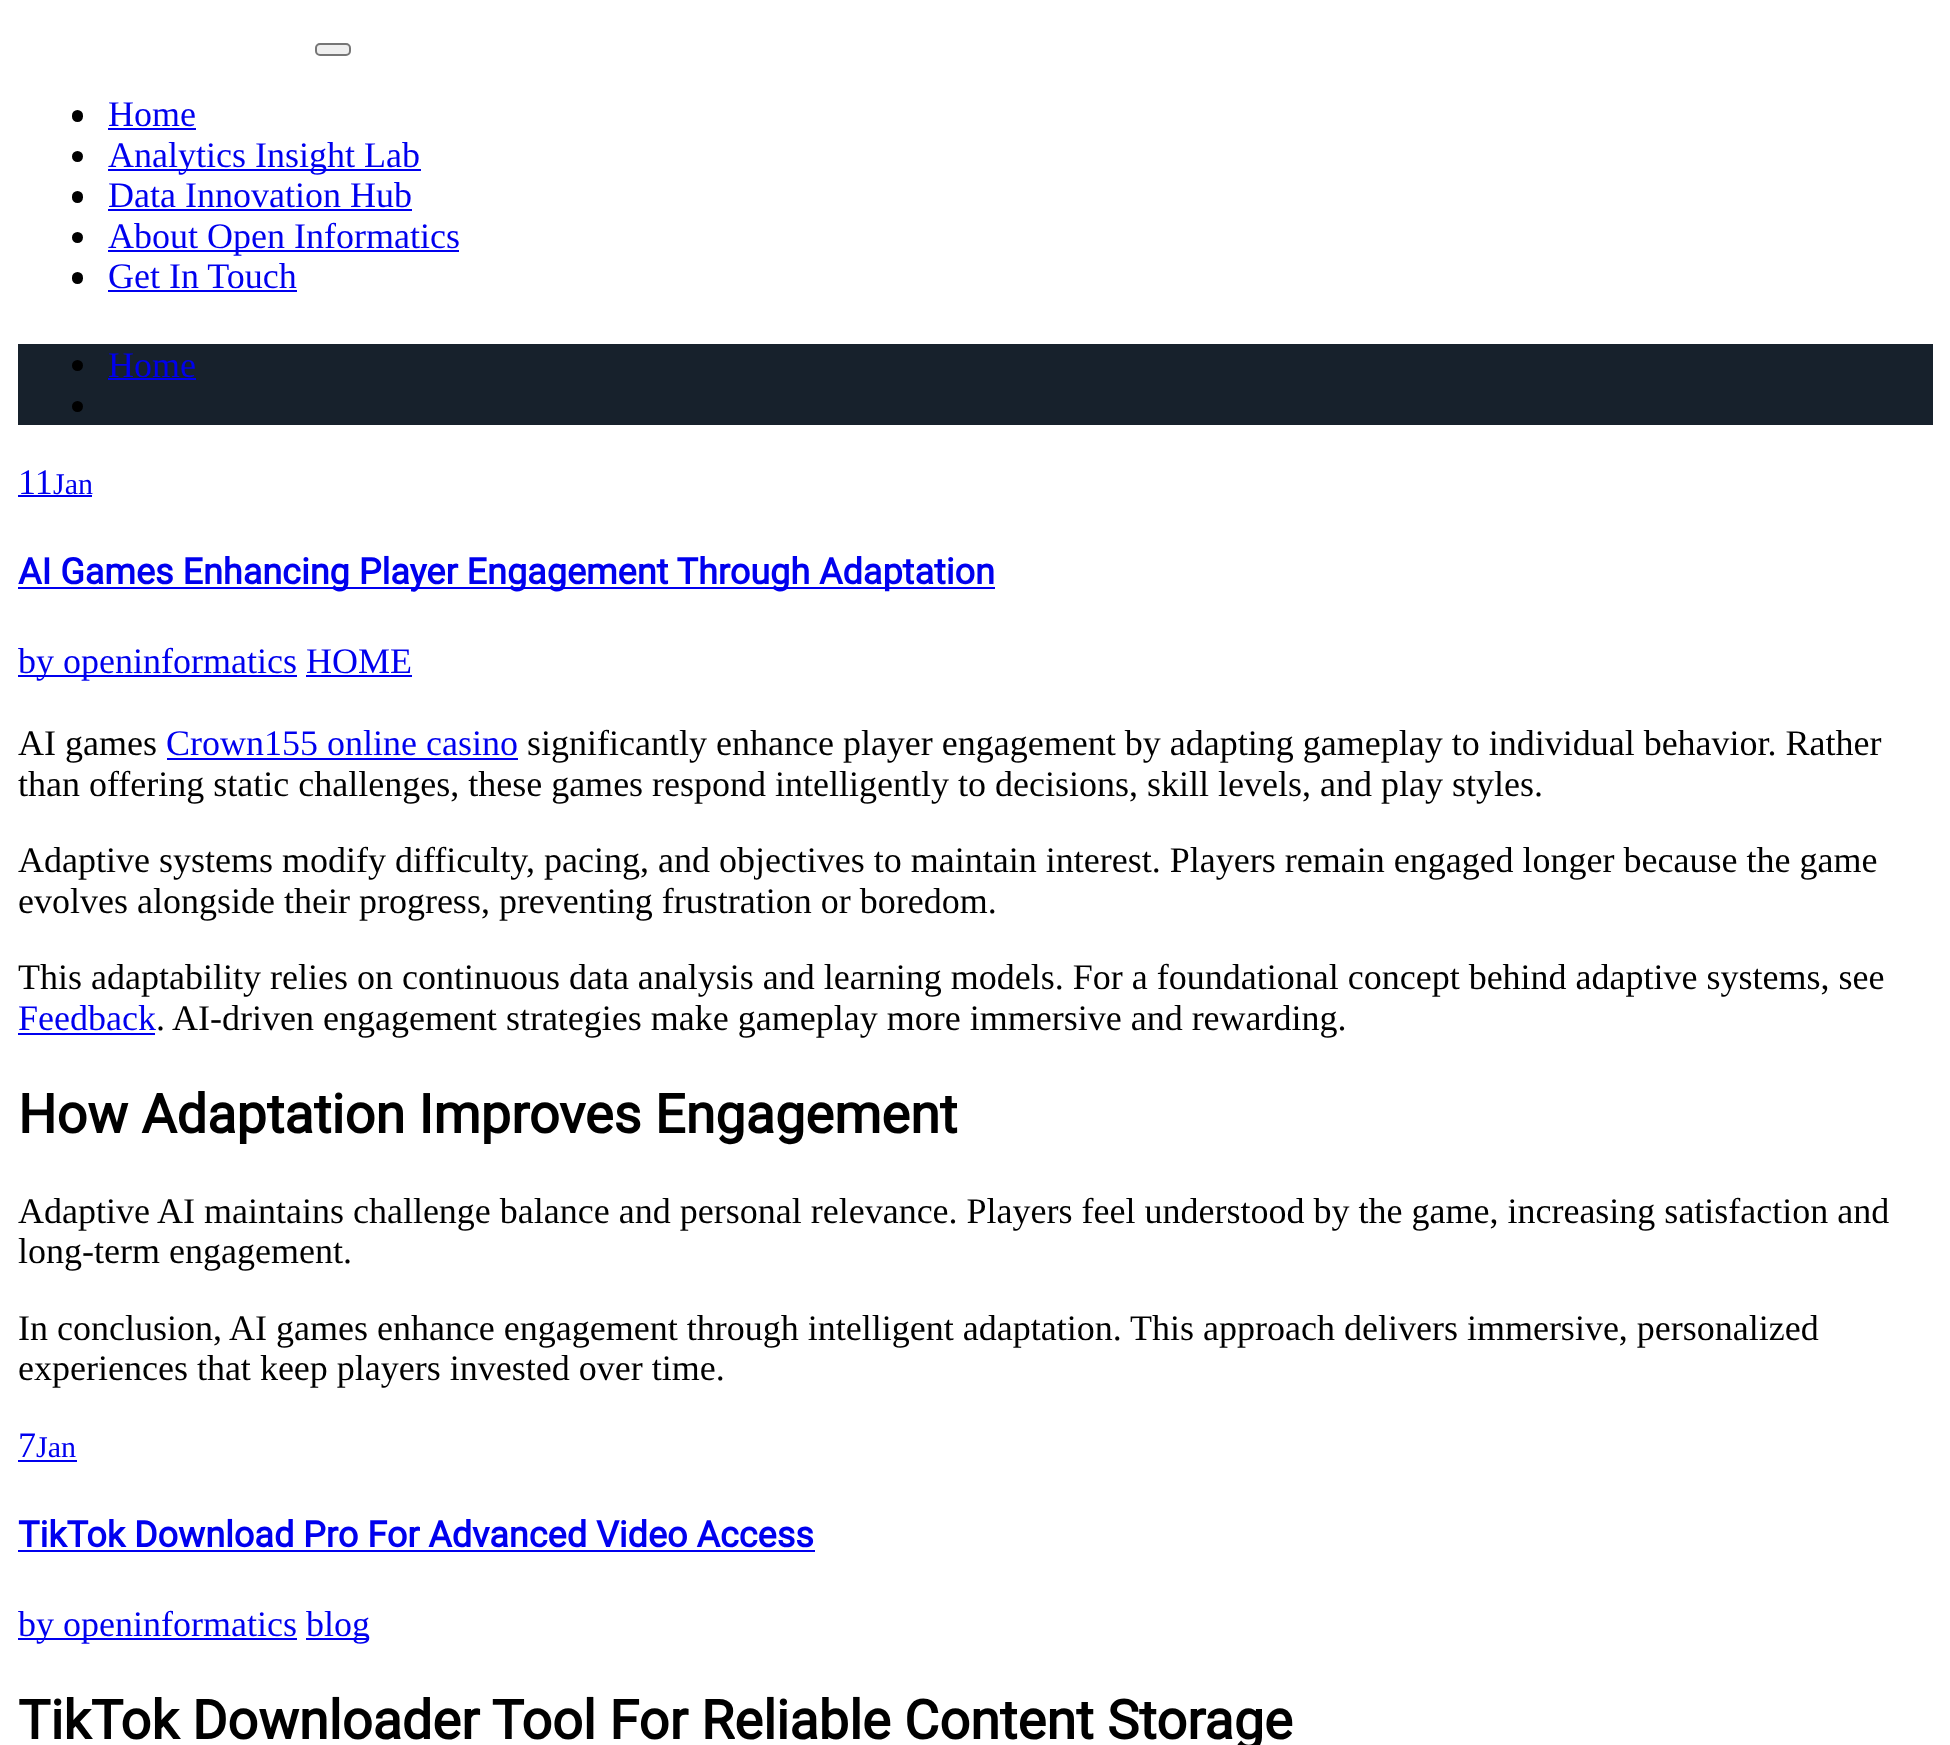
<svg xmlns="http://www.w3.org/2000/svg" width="1950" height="1745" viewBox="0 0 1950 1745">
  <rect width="100%" height="100%" fill="#fff"/>
  <rect x="316" y="44" width="34" height="11" rx="4" fill="#efefef" stroke="#767676" stroke-width="2"/>
  <rect x="72" y="110" width="11" height="12" rx="5.5" fill="#000"/>
  <path d="M108 128h88v2H108z" fill="#00e"/>
  <circle cx="77.5" cy="156.5" r="5.5" fill="#000"/>
  <path d="M108 169h313v2H108z" fill="#00e"/>
  <rect x="72" y="191" width="11" height="12" rx="5.5" fill="#000"/>
  <path d="M108 209h304v2H108z" fill="#00e"/>
  <circle cx="77.5" cy="237.5" r="5.5" fill="#000"/>
  <path d="M108 250h351v2H108z" fill="#00e"/>
  <rect x="72" y="272" width="11" height="12" rx="5.5" fill="#000"/>
  <path d="M108 290h189v2H108z" fill="#00e"/>
  <path d="M18 344h1915v81H18z" fill="#17212c"/>
  <circle cx="77.5" cy="365.5" r="5.5" fill="#000"/>
  <path d="M108 378h88v2H108z" fill="#00e"/>
  <circle cx="77.5" cy="406.5" r="5.5" fill="#000"/>
  <path d="M18 495h74v2H18z" fill="#00e"/>
  <path d="M18 587h977v2H18z" fill="#00e"/>
  <path d="M18 675h279v2H18z" fill="#00e"/>
  <path d="M306 675h106v2H306z" fill="#00e"/>
  <path d="M167 758h351v2H167z" fill="#00e"/>
  <path d="M18 1033h137v2H18z" fill="#00e"/>
  <path d="M18 1460h59v2H18z" fill="#00e"/>
  <path d="M18 1550h797v2H18z" fill="#00e"/>
  <path d="M18 1638h279v2H18z" fill="#00e"/>
  <path d="M306 1638h63v2H306z" fill="#00e"/>
  <g font-family="Liberation Serif" font-size="36" fill="#00e">
    <text x="108" y="126">Home</text>
    <text x="108" y="167">Analytics Insight Lab</text>
    <text x="108" y="207">Data Innovation Hub</text>
    <text x="108" y="248">About Open Informatics</text>
    <text x="108" y="288">Get In Touch</text>
    <text x="108" y="377">Home</text>
    <text x="18" y="494">11</text>
  </g>
  <text x="53" y="494" font-family="Liberation Serif" font-size="30" fill="#00e">Jan</text>
  <text x="18" y="584" font-family="Roboto" font-size="36" font-weight="bold" fill="#00e">AI Games Enhancing Player Engagement Through Adaptation</text>
  <text x="18" y="673" font-family="Liberation Serif" font-size="36" fill="#00e">by openinformatics HOME</text>
  <text x="18" y="755" font-family="Liberation Serif" font-size="36" fill="#000">AI games</text>
  <text x="166" y="755" font-family="Liberation Serif" font-size="36" fill="#00e">Crown155 online casino</text>
  <g font-family="Liberation Serif" font-size="36" fill="#000">
    <text x="527" y="755">significantly enhance player engagement by adapting gameplay to individual behavior. Rather</text>
    <text x="18" y="796">than offering static challenges, these games respond intelligently to decisions, skill levels, and play styles.</text>
    <text x="18" y="872">Adaptive systems modify difficulty, pacing, and objectives to maintain interest. Players remain engaged longer because the game</text>
    <text x="18" y="913">evolves alongside their progress, preventing frustration or boredom.</text>
    <text x="18" y="989">This adaptability relies on continuous data analysis and learning models. For a foundational concept behind adaptive systems, see</text>
  </g>
  <text x="18" y="1030" font-family="Liberation Serif" font-size="36" fill="#00e">Feedback</text>
  <text x="156" y="1030" font-family="Liberation Serif" font-size="36" fill="#000">. AI-driven engagement strategies make gameplay more immersive and rewarding.</text>
  <text x="18" y="1133" font-family="Roboto" font-size="54" font-weight="bold" fill="#000">How Adaptation Improves Engagement</text>
  <g font-family="Liberation Serif" font-size="36" fill="#000">
    <text x="18" y="1223">Adaptive AI maintains challenge balance and personal relevance. Players feel understood by the game, increasing satisfaction and</text>
    <text x="18" y="1263">long-term engagement.</text>
    <text x="18" y="1340">In conclusion, AI games enhance engagement through intelligent adaptation. This approach delivers immersive, personalized</text>
    <text x="18" y="1380">experiences that keep players invested over time.</text>
  </g>
  <text x="18" y="1457" font-family="Liberation Serif" font-size="36" fill="#00e">7</text>
  <text x="36" y="1457" font-family="Liberation Serif" font-size="30" fill="#00e">Jan</text>
  <text x="18" y="1547" font-family="Roboto" font-size="36" font-weight="bold" fill="#00e">TikTok Download Pro For Advanced Video Access</text>
  <g font-family="Liberation Serif" font-size="36" fill="#00e">
    <text x="18" y="1636">by openinformatics</text>
    <text x="306" y="1636">blog</text>
  </g>
  <text x="18" y="1739" font-family="Roboto" font-size="54" font-weight="bold" fill="#000">TikTok Downloader Tool For Reliable Content Storage</text>
</svg>
